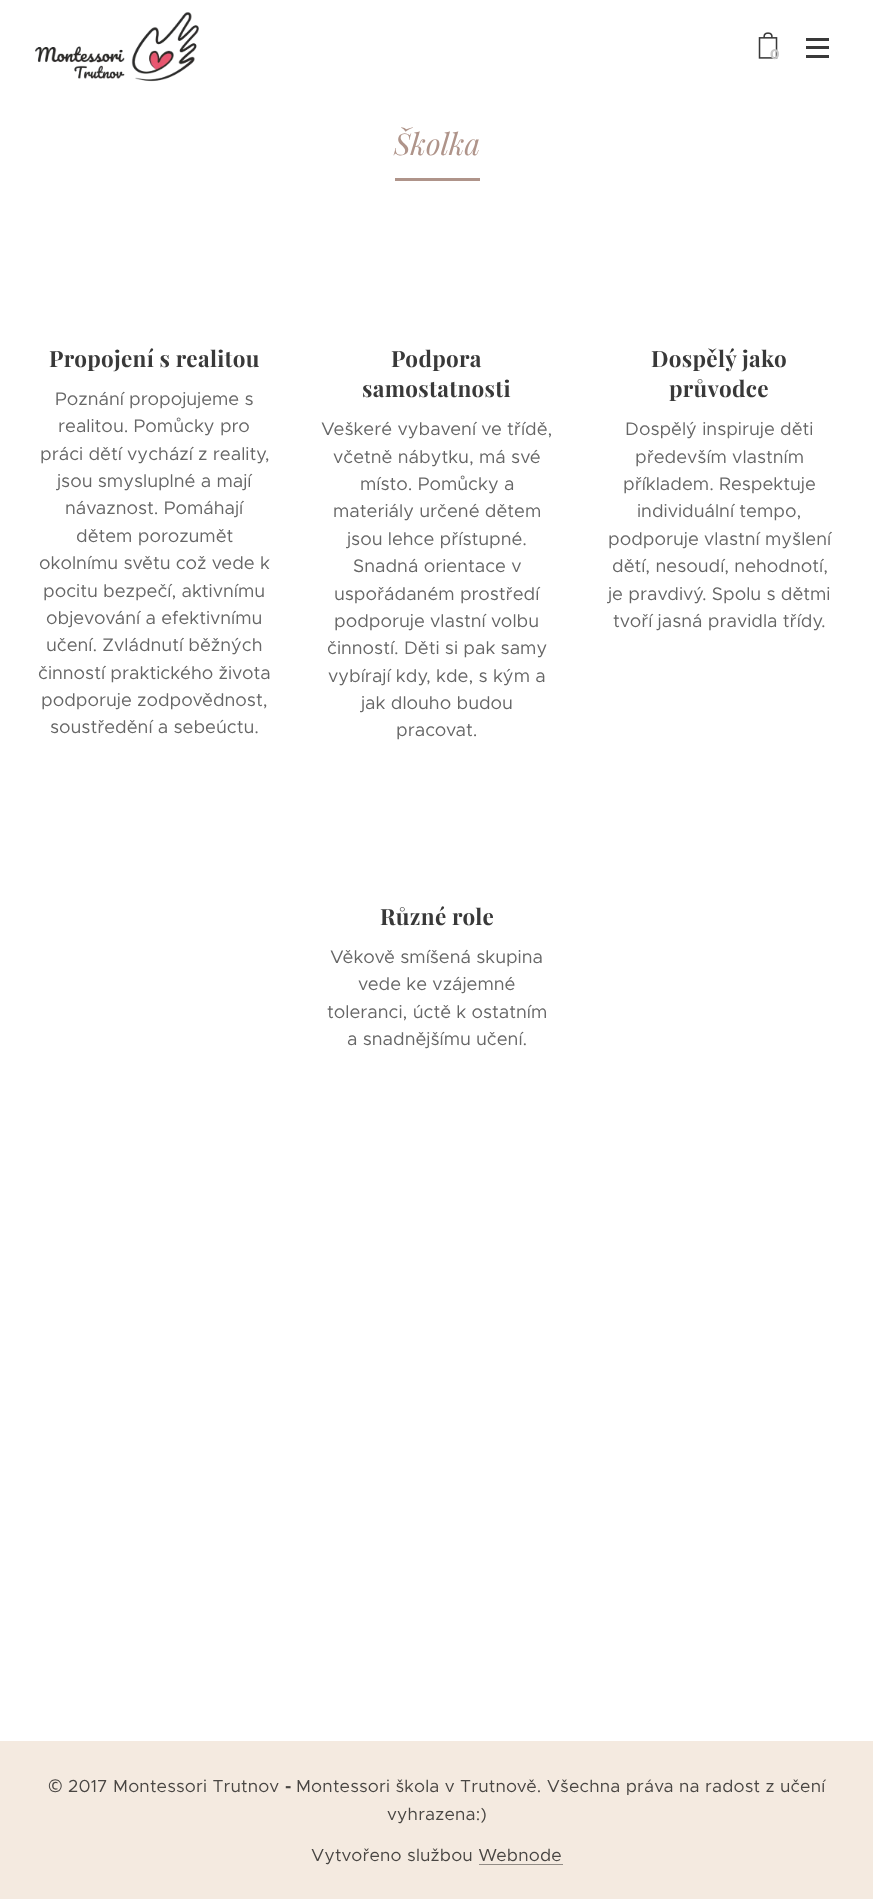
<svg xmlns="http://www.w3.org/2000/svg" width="873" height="1899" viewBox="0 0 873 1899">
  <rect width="100%" height="100%" fill="#fff"/>
  <image x="35" y="12" width="164" height="70" href="img/1.png"/>
  <image x="758" y="32" width="20" height="27" href="img/2.png"/>
  <path d="M806 46h23v3H806z" fill="#393939"/>
  <path d="M806 38h23v3H806z" fill="#393939"/>
  <path d="M806 55h23v3H806z" fill="#393939"/>
  <path d="M395 178h85v3H395z" fill="#af948a"/>
  <path d="M0 1741h873v158H0z" fill="#f4eae0"/>
  <text x="770" y="59" font-family="Montserrat" font-size="14" font-weight="bold" fill="#c8c8c8">0</text>
  <text x="394" y="155" font-family="Playfair Display" font-size="30" font-style="italic" fill="#af948a">Školka</text>
  <text x="49" y="367" font-family="Playfair Display" font-size="22.5" font-weight="bold" letter-spacing="0.3" fill="#393939">Propojení s realitou</text>
  <g font-family="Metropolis" font-size="18.25" fill="#666">
    <text x="55" y="405">Poznání propojujeme s</text>
    <text x="58" y="432">realitou. Pomůcky pro</text>
    <text x="40" y="460">práci dětí vychází z reality,</text>
    <text x="57" y="487">jsou smysluplné a mají</text>
    <text x="65" y="514">návaznost. Pomáhají</text>
    <text x="76" y="542">dětem porozumět</text>
    <text x="39" y="569">okolnímu světu což vede k</text>
    <text x="43" y="597">pocitu bezpečí, aktivnímu</text>
    <text x="46" y="624">objevování a efektivnímu</text>
    <text x="46" y="651">učení. Zvládnutí běžných</text>
    <text x="38" y="679">činností praktického života</text>
    <text x="41" y="706">podporuje zodpovědnost,</text>
    <text x="50" y="733">soustředění a sebeúctu.</text>
  </g>
  <g font-family="Playfair Display" font-size="22.5" font-weight="bold" letter-spacing="0.3" fill="#393939">
    <text x="391" y="367">Podpora</text>
    <text x="362" y="397">samostatnosti</text>
  </g>
  <g font-family="Metropolis" font-size="18.25" fill="#666">
    <text x="321" y="435">Veškeré vybavení ve třídě,</text>
    <text x="333" y="463">včetně nábytku, má své</text>
    <text x="360" y="490">místo. Pomůcky a</text>
    <text x="333" y="517">materiály určené dětem</text>
    <text x="347" y="545">jsou lehce přístupné.</text>
    <text x="353" y="572">Snadná orientace v</text>
    <text x="334" y="600">uspořádaném prostředí</text>
    <text x="334" y="627">podporuje vlastní volbu</text>
    <text x="327" y="654">činností. Děti si pak samy</text>
    <text x="328" y="682">vybírají kdy, kde, s kým a</text>
    <text x="361" y="709">jak dlouho budou</text>
    <text x="396" y="736">pracovat.</text>
  </g>
  <g font-family="Playfair Display" font-size="22.5" font-weight="bold" letter-spacing="0.3" fill="#393939">
    <text x="651" y="367">Dospělý jako</text>
    <text x="669" y="397">průvodce</text>
  </g>
  <g font-family="Metropolis" font-size="18.25" fill="#666">
    <text x="625" y="435">Dospělý inspiruje děti</text>
    <text x="635" y="463">především vlastním</text>
    <text x="623" y="490">příkladem. Respektuje</text>
    <text x="637" y="517">individuální tempo,</text>
    <text x="608" y="545">podporuje vlastní myšlení</text>
    <text x="612" y="572">dětí, nesoudí, nehodnotí,</text>
    <text x="608" y="600">je pravdivý. Spolu s dětmi</text>
    <text x="613" y="627">tvoří jasná pravidla třídy.</text>
  </g>
  <text x="380" y="925" font-family="Playfair Display" font-size="22.5" font-weight="bold" letter-spacing="0.3" fill="#393939">Různé role</text>
  <g font-family="Metropolis" font-size="18.25" fill="#666">
    <text x="330" y="963">Věkově smíšená skupina</text>
    <text x="358" y="990">vede ke vzájemné</text>
    <text x="327" y="1018">toleranci, úctě k ostatním</text>
    <text x="347" y="1045">a snadnějšímu učení.</text>
  </g>
  <text x="48" y="1792" font-family="Noto Sans" font-size="17.5" letter-spacing="0.18" fill="#494643">©</text>
  <text x="68" y="1792" font-family="Metropolis" font-size="17.5" letter-spacing="0.18" fill="#494643">2017 Montessori Trutnov</text>
  <text x="285" y="1792" font-family="Metropolis" font-size="17.5" font-weight="bold" letter-spacing="0.18" fill="#494643">-</text>
  <g font-family="Metropolis" font-size="17.5" letter-spacing="0.18" fill="#494643">
    <text x="296" y="1792">Montessori škola v Trutnově. Všechna práva na radost z učení</text>
    <text x="387" y="1820">vyhrazena:)</text>
    <text x="311" y="1861">Vytvořeno službou Webnode</text>
  </g>
  <path d="M479 1864h84v1H479z" fill="#928c86"/>
</svg>
